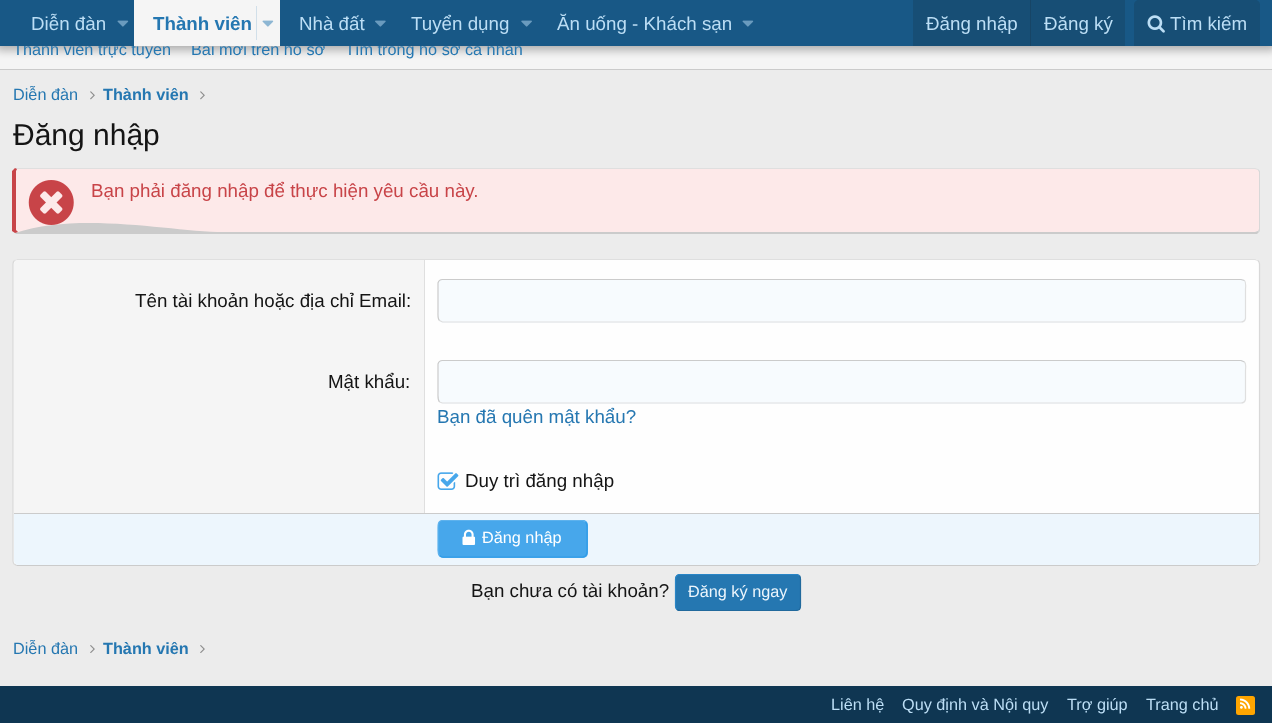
<svg xmlns="http://www.w3.org/2000/svg" width="1272" height="723" viewBox="0 0 1272 723">
  <rect width="100%" height="100%" fill="#ececec"/>
  <path d="M0 46h1272v23H0z" fill="#f5f5f5"/>
  <path d="M-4 -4h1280v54H-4z" fill="#0000004d" filter="blur(5px)"/>
  <path d="M0 69h1272v1H0z" fill="#cbcbcb"/>
  <image x="90" y="91" width="5" height="9" href="img/6.png"/>
  <image x="200" y="91" width="5" height="9" href="img/6.png"/>
  <path d="M18 169H1255C1257 169 1259 170 1259 172V229C1259 231 1257 232 1255 232H18C17 232 16 231 16 229V172C16 170 17 169 18 169Z" fill="#fde9e9"/>
  <path d="M18 168H15L17 169H1255L1258 170V169L1255 168Z" fill="#dfdfdf"/>
  <path d="M1260 229V171L1258 169V170L1259 172V229L1258 231L1259 232C1260 232 1260 230 1260 229Z" fill="#d8d8d8"/>
  <path d="M16 234L15 233C81 211 172 232 224 232H1255L1258 231L1259 232L1257 234Z" fill="#cbcbcb"/>
  <path d="M12 171L15 168L17 169L16 171V230L17 231L18 232L15 233L12 231Z" fill="#c84448"/>
  <image x="28" y="180" width="46" height="45" href="img/7.png"/>
  <rect x="13" y="259" width="1247" height="307" rx="5" fill="#fefefe"/>
  <path d="M14.5 260.5L17.5 259.5H1255L1258 260.5" fill="none" stroke="#dfdfdf" stroke-width="1.2"/>
  <path d="M1258 260.5C1259 261.5 1259.5 262.5 1259.5 264V561C1259.5 562.5 1259 563.5 1258 564.5" fill="none" stroke="#d8d8d8" stroke-width="1.2"/>
  <path d="M1258 564.5L1255 565.5H17.5L14.5 564.5" fill="none" stroke="#cbcbcb" stroke-width="1.2"/>
  <path d="M14.5 564.5C13.5 563.5 13 562.5 13 561V264C13 262.5 13.5 261.5 14.5 260.5" fill="none" stroke="#d8d8d8" stroke-width="1.2"/>
  <path d="M18 260H425V341H14V264C14 262 16 260 18 260Z" fill="#f5f5f5"/>
  <path d="M424 260h1v253H424z" fill="#dfdfdf"/>
  <rect x="438" y="279" width="808" height="44" rx="5" fill="#f7fbfe"/>
  <path d="M1244.5 280.5C1246.5 283 1245.5 287 1245.5 289.5V318.5C1245 320.5 1243.5 322 1241 322H442.5L439.5 320.5" fill="none" stroke="#dfdfdf" stroke-width="1.2"/>
  <path d="M439.5 320.5C437.5 318.5 438 314.5 438 312V283C438.5 281 440.5 279.5 442.5 279.5H1241L1244.5 280.5" fill="none" stroke="#cbcbcb" stroke-width="1.2"/>
  <path d="M14 341h410v172H14z" fill="#f5f5f5"/>
  <rect x="438" y="360" width="808" height="44" rx="5" fill="#f7fbfe"/>
  <path d="M1244.5 362C1246.5 364 1245.5 368 1245.5 370.5V399.5C1245 401.5 1243.5 403 1241 403H442.5L439.5 402" fill="none" stroke="#dfdfdf" stroke-width="1.2"/>
  <path d="M439.5 402C437.5 399.5 438 395.5 438 393V364C438.5 362 440.5 360.5 442.5 360.5H1241L1244.5 362" fill="none" stroke="#cbcbcb" stroke-width="1.2"/>
  <image x="437" y="472" width="22" height="18" href="img/8.png"/>
  <path d="M14 513H1259V561C1259 563 1257 565 1255 565H18C16 565 14 563 14 561Z" fill="#edf6fd"/>
  <path d="M14 513h1245v1H14z" fill="#cbcbcb"/>
  <rect x="438" y="520" width="150" height="38" rx="5" fill="#47a7eb"/>
  <path d="M585.5 522C587.5 524 587 527 587 529.5V548C587 551.5 587.5 557 582.5 557H442L439.5 555.5" fill="none" stroke="#309ce8" stroke-width="1.2"/>
  <path d="M439.5 555.5C437.5 553.5 438 550.5 438 548V529.5C438 526 437.5 520.5 442.5 520.5H583L585.5 522" fill="none" stroke="#5eb2ed" stroke-width="1.2"/>
  <image x="462" y="529" width="14" height="16" href="img/9.png"/>
  <rect x="675" y="574" width="126" height="37" rx="5" fill="#2577b1"/>
  <path d="M799.5 575.5C800 576.5 800.5 577.5 800.5 579V606C800.5 607.5 800 608.5 799.5 609.5C798.5 610 797.5 610.5 796 610.5H680C679 610.5 677.5 610 677 609.5" fill="none" stroke="#21699c" stroke-width="1.2"/>
  <path d="M677 609.5C676 608.5 675.5 607.5 675.5 606V579C675.5 577.5 676 576.5 677 575.5C677.5 575 679 574.5 680 574.5H796C797.5 574.5 798.5 575 799.5 575.5" fill="none" stroke="#2985c6" stroke-width="1.2"/>
  <image x="90" y="645" width="5" height="8" href="img/10.png"/>
  <image x="200" y="645" width="5" height="8" href="img/10.png"/>
  <path d="M0 686h1272v37H0z" fill="#0f3652"/>
  <rect x="1236" y="696" width="19" height="19" rx="2.5" fill="#ffa500"/>
  <image x="1240" y="698" width="11" height="11" href="img/11.png"/>
  <g font-family="Liberation Sans" font-size="16.25" fill="#2577b1">
    <text x="13" y="55">Thành viên trực tuyến</text>
    <text x="191" y="55">Bài mới trên hồ sơ</text>
    <text x="345" y="55">Tìm trong hồ sơ cá nhân</text>
  </g>
  <path d="M0 0h1272v46H0z" fill="#185886"/>
  <image x="742" y="20" width="12" height="7" href="img/1.png"/>
  <image x="521" y="20" width="11" height="7" href="img/4.png"/>
  <image x="375" y="20" width="11" height="7" href="img/3.png"/>
  <path d="M134 0h146v46H134z" fill="#f5f5f5"/>
  <path d="M256 6h1v34H256z" fill="#d1dfe9"/>
  <image x="262" y="20" width="12" height="7" href="img/2.png"/>
  <image x="117" y="20" width="12" height="7" href="img/1.png"/>
  <g font-family="Liberation Sans" font-size="18.75" fill="#bcdef5">
    <text x="557" y="30">Ăn uống - Khách sạn</text>
    <text x="411" y="30">Tuyển dụng</text>
    <text x="299" y="30">Nhà đất</text>
  </g>
  <text x="153" y="30" font-family="Liberation Sans" font-size="18.75" font-weight="bold" fill="#2577b1">Thành viên</text>
  <text x="31" y="30" font-family="Liberation Sans" font-size="18.75" fill="#bcdef5">Diễn đàn</text>
  <path d="M1139 0H1255C1258 0 1260 2 1260 5V46H1134V5C1134 2 1136 0 1139 0Z" fill="#174e75"/>
  <text x="1170" y="30" font-family="Liberation Sans" font-size="18.75" fill="#bcdef5">Tìm kiếm</text>
  <image x="1147" y="15" width="18" height="18" href="img/5.png"/>
  <path d="M913 0h212v46H913z" fill="#174e75"/>
  <text x="1044" y="30" font-family="Liberation Sans" font-size="18.75" fill="#bcdef5">Đăng ký</text>
  <path d="M1030 0h1v46H1030z" fill="#174566"/>
  <text x="926" y="30" font-family="Liberation Sans" font-size="18.75" fill="#bcdef5">Đăng nhập</text>
  <text x="13" y="100" font-family="Liberation Sans" font-size="16.25" fill="#2577b1">Diễn đàn</text>
  <text x="103" y="100" font-family="Liberation Sans" font-size="16.25" font-weight="bold" fill="#2577b1">Thành viên</text>
  <text x="13" y="145" font-family="Liberation Sans" font-size="30" fill="#141414">Đăng nhập</text>
  <text x="91" y="197" font-family="Liberation Sans" font-size="18.75" fill="#c84448">Bạn phải đăng nhập để thực hiện yêu cầu này.</text>
  <g font-family="Liberation Sans" font-size="18.75" fill="#141414">
    <text x="135" y="307">Tên tài khoản hoặc địa chỉ Email:</text>
    <text x="328" y="388">Mật khẩu:</text>
  </g>
  <text x="437" y="423" font-family="Liberation Sans" font-size="18.75" fill="#2577b1">Bạn đã quên mật khẩu?</text>
  <text x="465" y="487" font-family="Liberation Sans" font-size="18.75" fill="#141414">Duy trì đăng nhập</text>
  <text x="482" y="543" font-family="Liberation Sans" font-size="16.25" fill="#fff">Đăng nhập</text>
  <text x="471" y="597" font-family="Liberation Sans" font-size="18.75" fill="#141414">Bạn chưa có tài khoản?</text>
  <text x="688" y="597" font-family="Liberation Sans" font-size="16.25" fill="#edf6fd">Đăng ký ngay</text>
  <text x="13" y="654" font-family="Liberation Sans" font-size="16.25" fill="#2577b1">Diễn đàn</text>
  <text x="103" y="654" font-family="Liberation Sans" font-size="16.25" font-weight="bold" fill="#2577b1">Thành viên</text>
  <g font-family="Liberation Sans" font-size="16.25" fill="#bcdef5">
    <text x="831" y="710">Liên hệ</text>
    <text x="902" y="710">Quy định và Nội quy</text>
    <text x="1067" y="710">Trợ giúp</text>
    <text x="1146" y="710">Trang chủ</text>
  </g>
</svg>
